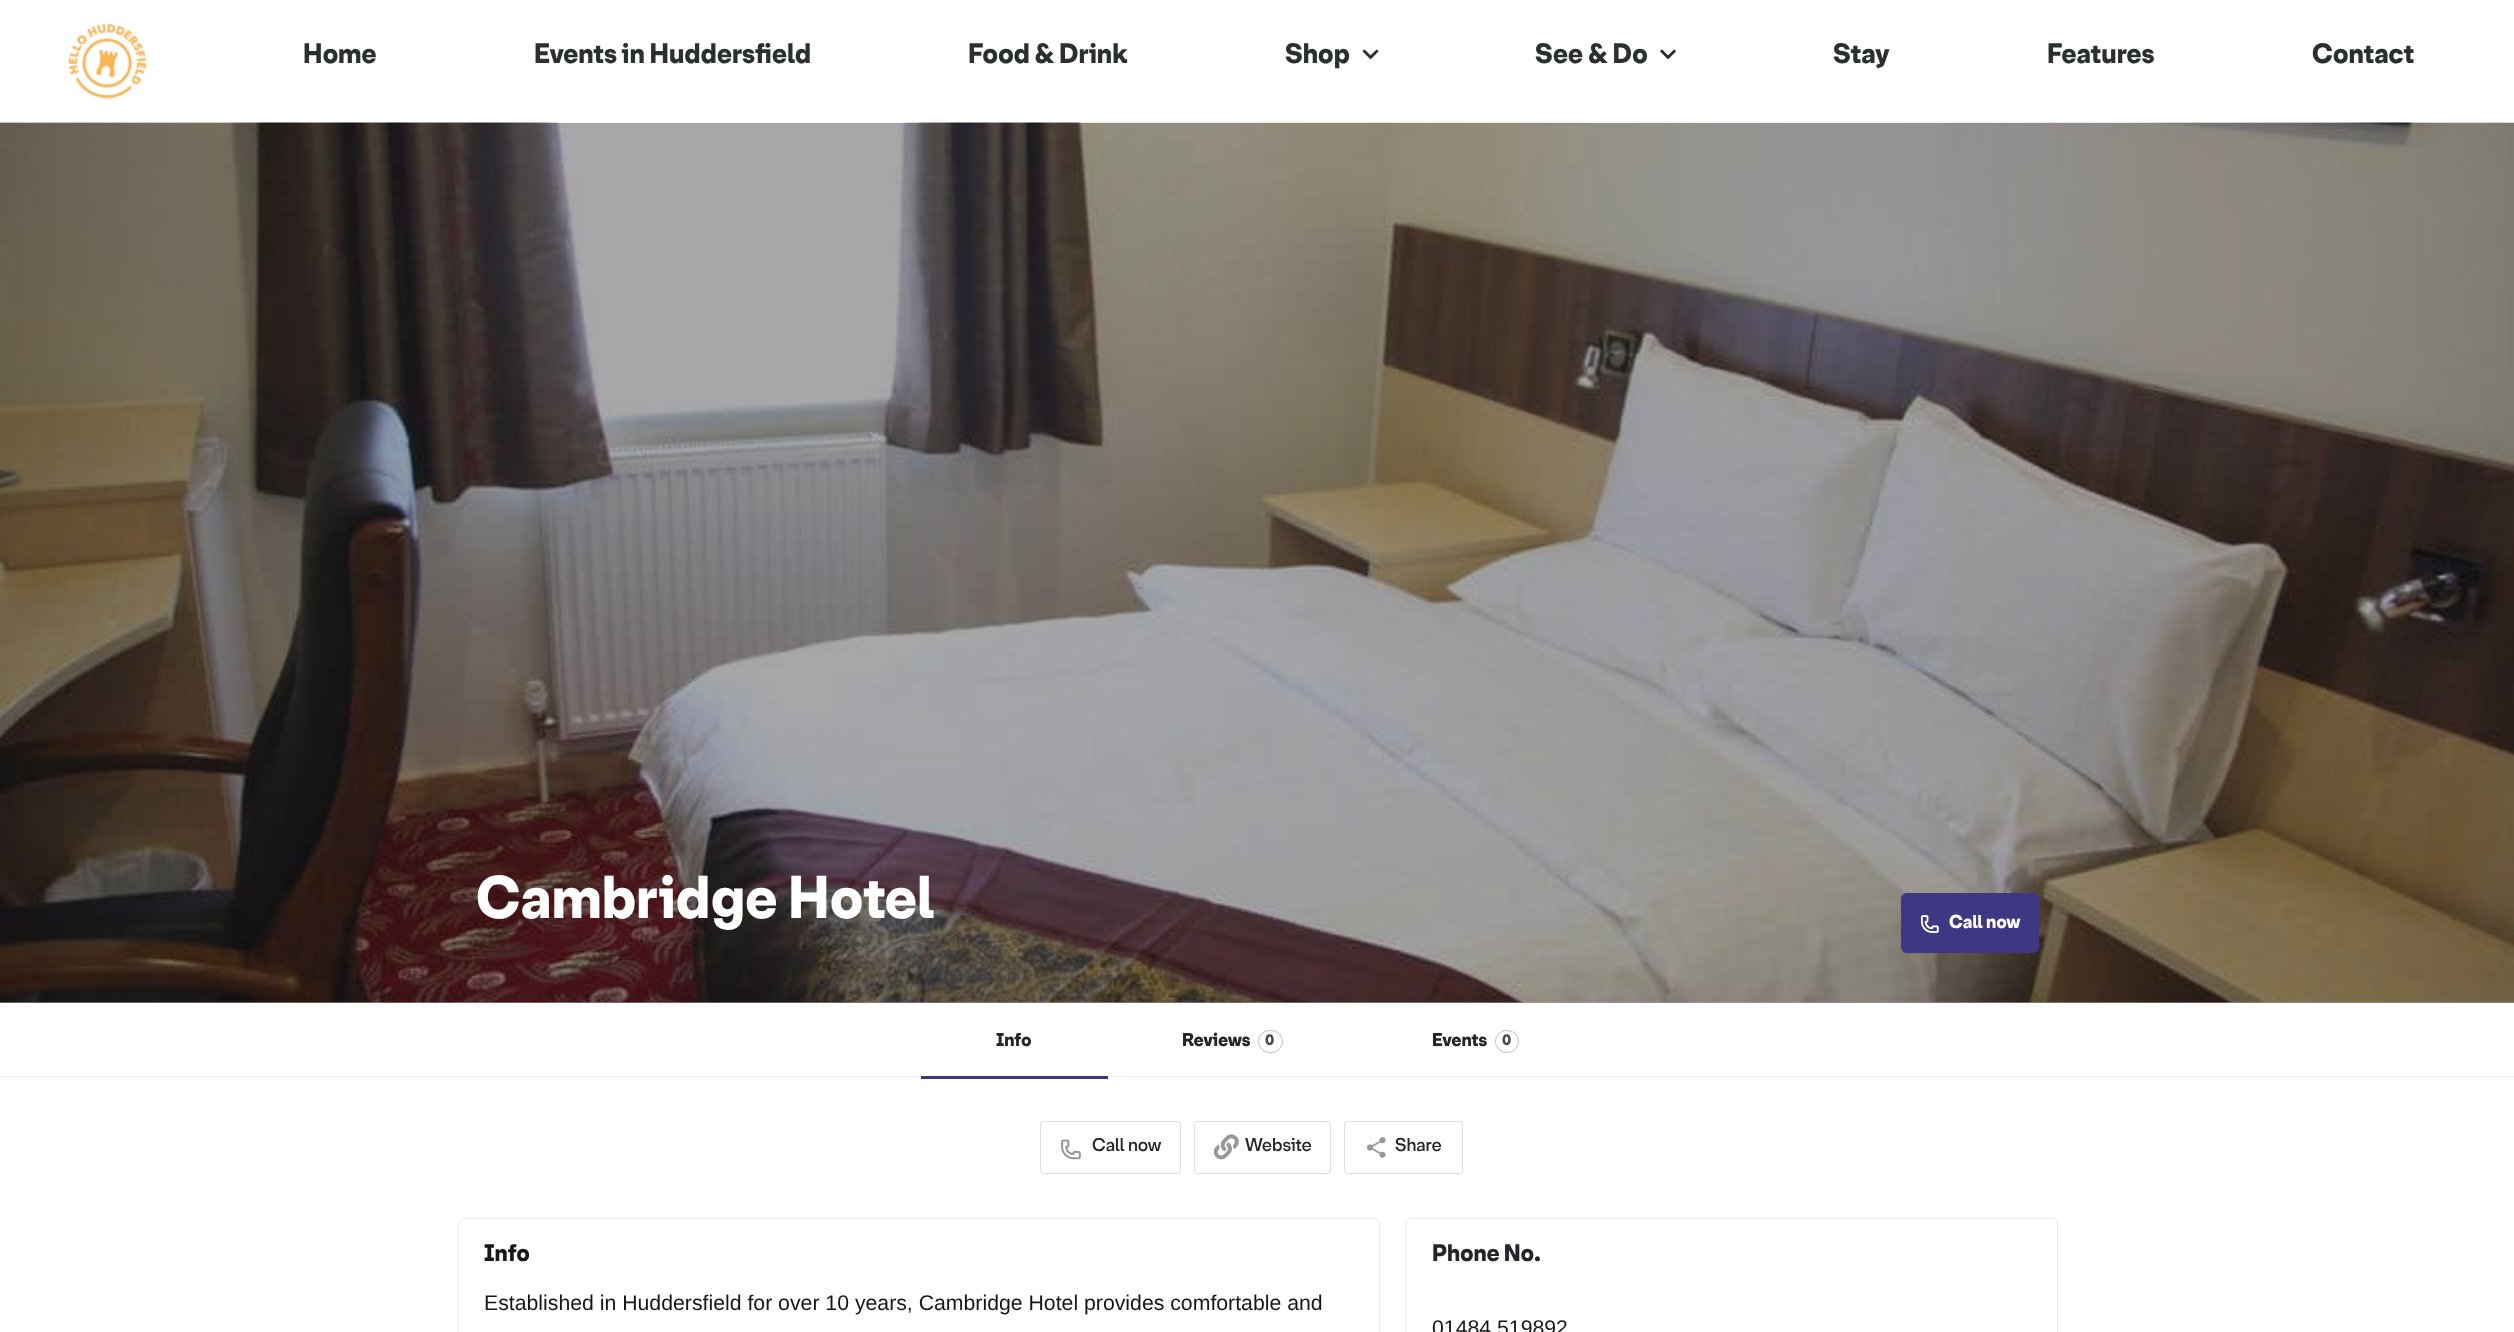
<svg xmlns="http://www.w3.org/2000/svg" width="2514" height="1332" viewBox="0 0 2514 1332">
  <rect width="100%" height="100%" fill="#fff"/>
  <image x="68" y="23" width="79" height="76" href="img/1.png"/>
  <image x="1362" y="49" width="17" height="11" href="img/2.png"/>
  <image x="1660" y="49" width="16" height="11" href="img/3.png"/>
  <image x="0" y="122" width="2514" height="881" href="img/4.png"/>
  <path d="M0 123h2514v880H0z" fill="#24242966"/>
  <rect x="1901" y="893" width="138" height="60" rx="6" fill="#3e3784"/>
  <image x="1920" y="915" width="19" height="18" href="img/5.png"/>
  <path d="M0 1076h2514v1H0z" fill="#ebebeb"/>
  <path d="M921 1076h187v3H921z" fill="#3e3784"/>
  <rect x="1258.5" y="1030.5" width="24" height="22" rx="11" fill="none" stroke="#bac1c1"/>
  <rect x="1495.5" y="1030.5" width="23" height="22" rx="11" fill="none" stroke="#bac1c1"/>
  <rect x="1040.5" y="1121.5" width="140" height="52" rx="3.5" fill="none" stroke="#dbdbdb"/>
  <image x="1061" y="1139" width="20" height="21" href="img/6.png"/>
  <rect x="1194.5" y="1121.5" width="136" height="52" rx="3.5" fill="none" stroke="#dbdbdb"/>
  <image x="1213" y="1134" width="26" height="26" href="img/7.png"/>
  <rect x="1344.5" y="1121.5" width="118" height="52" rx="3.5" fill="none" stroke="#dbdbdb"/>
  <image x="1366" y="1137" width="20" height="21" href="img/8.png"/>
  <rect x="458.5" y="1218.5" width="921" height="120" rx="5.5" fill="none" stroke="#ebebeb"/>
  <rect x="1405.5" y="1218.5" width="652" height="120" rx="5.5" fill="none" stroke="#ebebeb"/>
  <g font-family="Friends" font-size="26.25" font-weight="900" fill="#2a302f">
    <text x="303" y="63">Home</text>
    <text x="534" y="63">Events in Huddersfield</text>
    <text x="968" y="63">Food &amp; Drink</text>
    <text x="1285" y="63">Shop</text>
    <text x="1535" y="63">See &amp; Do</text>
    <text x="1833" y="63">Stay</text>
    <text x="2047" y="63">Features</text>
    <text x="2312" y="63">Contact</text>
  </g>
  <text x="476" y="918" font-family="Friends" font-size="56.25" font-weight="900" fill="#fff">Cambridge Hotel</text>
  <text x="1949" y="928" font-family="Friends" font-size="17.5" font-weight="900" fill="#fff">Call now</text>
  <g font-family="Friends" font-size="17.5" font-weight="900" fill="#242429">
    <text x="996" y="1046">Info</text>
    <text x="1182" y="1046">Reviews</text>
  </g>
  <text x="1265" y="1045" font-family="Friends" font-size="14" font-weight="900" fill="#484848">0</text>
  <text x="1432" y="1046" font-family="Friends" font-size="17.5" font-weight="900" fill="#242429">Events</text>
  <text x="1502" y="1045" font-family="Friends" font-size="14" font-weight="900" fill="#484848">0</text>
  <g font-family="Friends" font-size="17.5" font-weight="600" fill="#242429">
    <text x="1092" y="1151">Call now</text>
    <text x="1245" y="1151">Website</text>
    <text x="1395" y="1151">Share</text>
  </g>
  <text x="484" y="1261" font-family="Friends" font-size="22.5" font-weight="900" fill="#161616">Info</text>
  <text x="484" y="1310" font-family="Liberation Sans" font-size="21.25" fill="#161616">Established in Huddersfield for over 10 years, Cambridge Hotel provides comfortable and</text>
  <text x="1432" y="1261" font-family="Friends" font-size="22.5" font-weight="900" fill="#242429">Phone No.</text>
  <text x="1432" y="1335" font-family="Liberation Sans" font-size="21.25" fill="#161616">01484 519892</text>
</svg>
